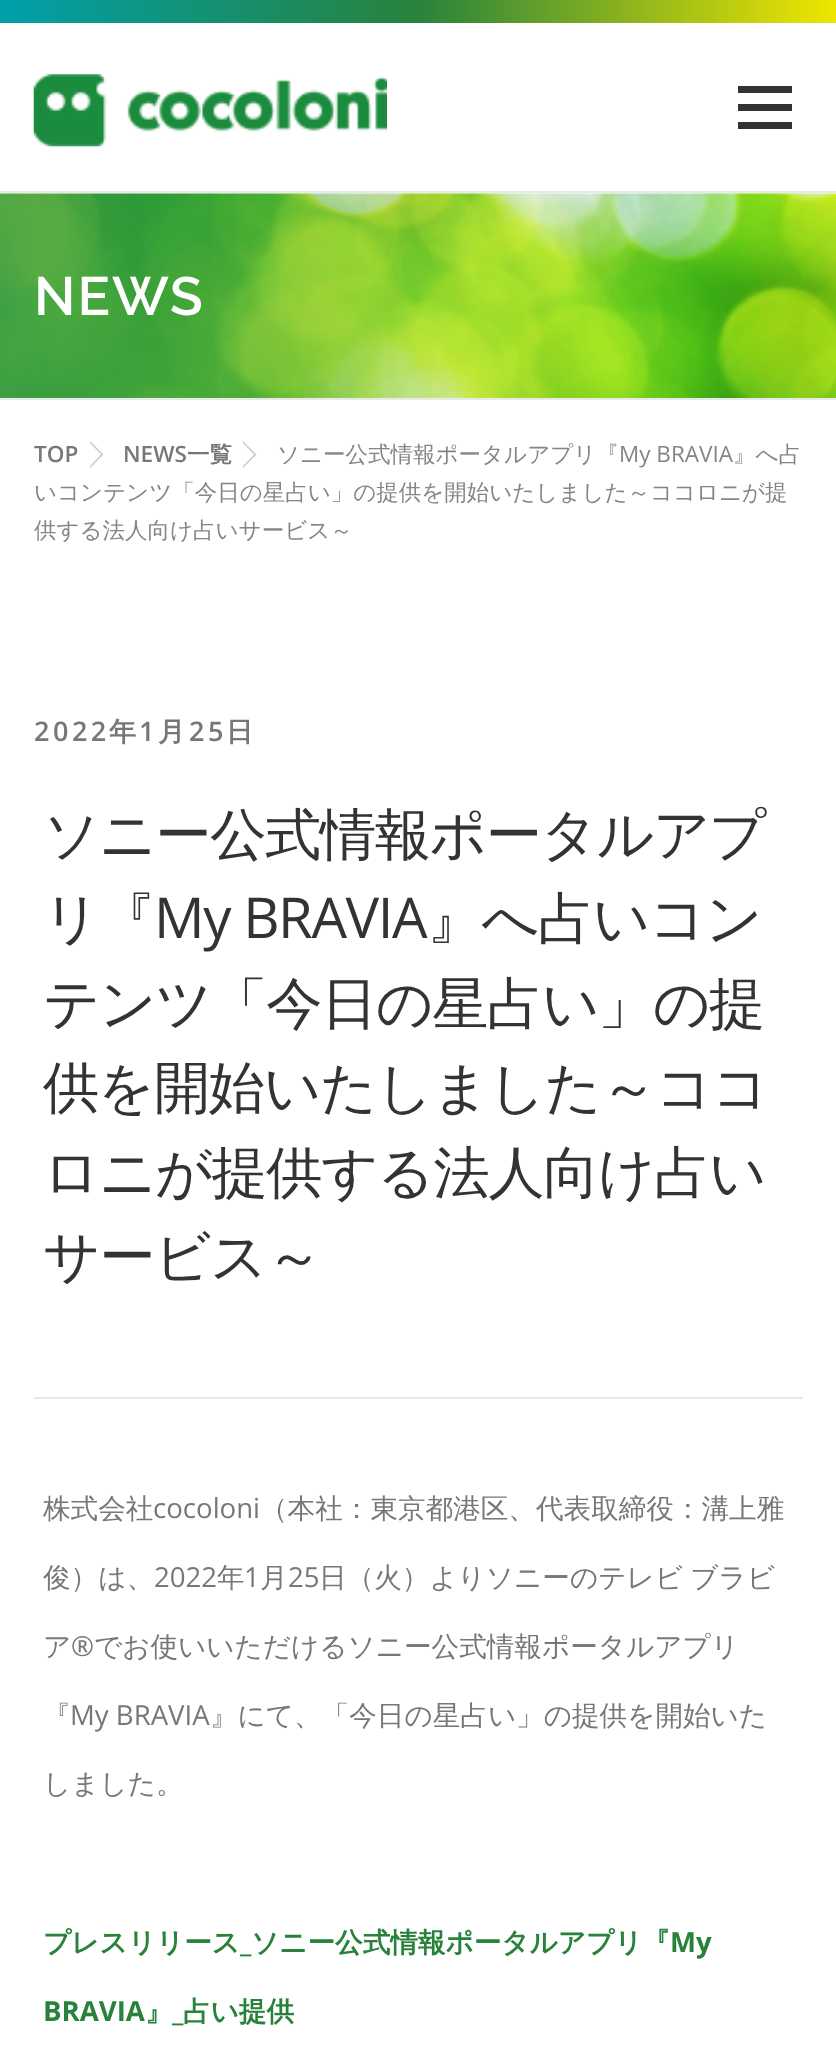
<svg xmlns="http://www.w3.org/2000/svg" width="836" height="2065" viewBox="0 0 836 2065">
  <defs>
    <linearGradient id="g1" gradientUnits="userSpaceOnUse" x1="0" y1="11" x2="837" y2="11"><stop offset="0" stop-color="#00a0aa"/><stop offset="0.5" stop-color="#28823c"/><stop offset="1" stop-color="#f0e600"/></linearGradient>
  </defs>
  <rect width="100%" height="100%" fill="#fff"/>
  <path d="M0 0h836v23H0z" fill="url(#g1)"/>
  <image x="33" y="74" width="354" height="73" href="img/1.png"/>
  <path d="M738 104h54v7H738z" fill="#333"/>
  <path d="M738 86h54v7H738z" fill="#333"/>
  <path d="M738 122h54v7H738z" fill="#333"/>
  <image x="0" y="193" width="836" height="205" href="img/2.png"/>
  <path d="M0 191h836v2H0z" fill="#e9e9e9"/>
  <path d="M0 398h836v2H0z" fill="#e9e9e9"/>
  <path d="M90 468V441L103.5 454.5Z" fill="#ccc"/>
  <path d="M90 466V443L101 454.5Z" fill="#fff"/>
  <path d="M243 468V441L256.5 454.5Z" fill="#ccc"/>
  <path d="M243 466V443L254 454.5Z" fill="#fff"/>
  <path d="M34 1397h769v2H34z" fill="#e9e9e9"/>
  <text x="34" y="315" font-family="Raleway" font-size="54" font-weight="600" letter-spacing="2" fill="#fff">NEWS</text>
  <g font-family="Open Sans" font-size="22.5" font-weight="600" fill="#777">
    <text x="34" y="462">TOP</text>
    <text x="123" y="462">NEWS</text>
  </g>
  <text x="187" y="462" font-family="WenQuanYi Zen Hei" font-size="22.5" font-weight="bold" fill="#777">一覧</text>
  <text x="277" y="462" font-family="WenQuanYi Zen Hei" font-size="22.5" font-weight="500" fill="#858585">ソニー公式情報ポータルアプリ『</text>
  <text x="619" y="462" font-family="Open Sans" font-size="22.5" fill="#858585">My BRAVIA</text>
  <g font-family="WenQuanYi Zen Hei" font-size="22.5" font-weight="500" fill="#858585">
    <text x="733" y="462">』へ占</text>
    <text x="34" y="500">いコンテンツ「今日の星占い」の提供を開始いたしました～ココロニが提</text>
    <text x="34" y="538">供する法人向け占いサービス～</text>
  </g>
  <text x="34" y="741" font-family="Open Sans" font-size="27" font-weight="600" letter-spacing="3.5" fill="#777">2022</text>
  <text x="109" y="741" font-family="WenQuanYi Zen Hei" font-size="27" font-weight="bold" letter-spacing="3.5" fill="#777">年</text>
  <text x="139" y="741" font-family="Open Sans" font-size="27" font-weight="600" letter-spacing="3.5" fill="#777">1</text>
  <text x="158" y="741" font-family="WenQuanYi Zen Hei" font-size="27" font-weight="bold" letter-spacing="3.5" fill="#777">月</text>
  <text x="189" y="741" font-family="Open Sans" font-size="27" font-weight="600" letter-spacing="3.5" fill="#777">25</text>
  <text x="226" y="741" font-family="WenQuanYi Zen Hei" font-size="27" font-weight="bold" letter-spacing="3.5" fill="#777">日</text>
  <g font-family="WenQuanYi Zen Hei" font-size="56.25" font-weight="500" letter-spacing="-1.4" fill="#333">
    <text x="43" y="854">ソニー公式情報ポータルアプ</text>
    <text x="43" y="938">リ『</text>
  </g>
  <text x="154" y="938" font-family="Open Sans" font-size="56.25" letter-spacing="-1.4" fill="#333">My BRAVIA</text>
  <g font-family="WenQuanYi Zen Hei" font-size="56.25" font-weight="500" letter-spacing="-1.4" fill="#333">
    <text x="427" y="938">』へ占いコン</text>
    <text x="43" y="1023">テンツ「今日の星占い」の提</text>
    <text x="43" y="1107">供を開始いたしました～ココ</text>
    <text x="43" y="1192">ロニが提供する法人向け占い</text>
    <text x="43" y="1276">サービス～</text>
  </g>
  <text x="43" y="1518" font-family="WenQuanYi Zen Hei" font-size="27.6" font-weight="500" fill="#777">株式会社</text>
  <text x="153" y="1518" font-family="Open Sans" font-size="27.6" fill="#777">cocoloni</text>
  <g font-family="WenQuanYi Zen Hei" font-size="27.6" font-weight="500" fill="#777">
    <text x="260" y="1518">（本社：東京都港区、代表取締役：溝上雅</text>
    <text x="43" y="1587">俊）は、</text>
  </g>
  <text x="154" y="1587" font-family="Open Sans" font-size="27.6" fill="#777">2022</text>
  <text x="217" y="1587" font-family="WenQuanYi Zen Hei" font-size="27.6" font-weight="500" fill="#777">年</text>
  <text x="244" y="1587" font-family="Open Sans" font-size="27.6" fill="#777">1</text>
  <text x="260" y="1587" font-family="WenQuanYi Zen Hei" font-size="27.6" font-weight="500" fill="#777">月</text>
  <text x="288" y="1587" font-family="Open Sans" font-size="27.6" fill="#777">25</text>
  <g font-family="WenQuanYi Zen Hei" font-size="27.6" font-weight="500" fill="#777">
    <text x="319" y="1587" word-spacing="-1">日（火）よりソニーのテレビ ブラビ</text>
    <text x="43" y="1656">ア</text>
  </g>
  <text x="71" y="1656" font-family="Open Sans" font-size="27.6" fill="#777">®</text>
  <g font-family="WenQuanYi Zen Hei" font-size="27.6" font-weight="500" fill="#777">
    <text x="94" y="1656">でお使いいただけるソニー公式情報ポータルアプリ</text>
    <text x="43" y="1725">『</text>
  </g>
  <text x="70" y="1725" font-family="Open Sans" font-size="27.6" fill="#777">My BRAVIA</text>
  <g font-family="WenQuanYi Zen Hei" font-size="27.6" font-weight="500" fill="#777">
    <text x="210" y="1725">』にて、「今日の星占い」の提供を開始いた</text>
    <text x="43" y="1793">しました。</text>
  </g>
  <text x="43" y="1952" font-family="WenQuanYi Zen Hei" font-size="27.6" font-weight="bold" fill="#28823c">プレスリリース</text>
  <text x="240" y="1952" font-family="Open Sans" font-size="27.6" font-weight="bold" fill="#28823c">_</text>
  <text x="251" y="1952" font-family="WenQuanYi Zen Hei" font-size="27.6" font-weight="bold" fill="#28823c">ソニー公式情報ポータルアプリ『</text>
  <g font-family="Open Sans" font-size="27.6" font-weight="bold" fill="#28823c">
    <text x="670" y="1952">My</text>
    <text x="43" y="2021">BRAVIA</text>
  </g>
  <g font-family="WenQuanYi Zen Hei" font-size="27.6" font-weight="bold" fill="#28823c">
    <text x="145" y="2021">』</text>
    <text x="183" y="2021">占い提供</text>
  </g>
  <text x="172" y="2021" font-family="Open Sans" font-size="27.6" font-weight="bold" fill="#28823c">_</text>
</svg>
